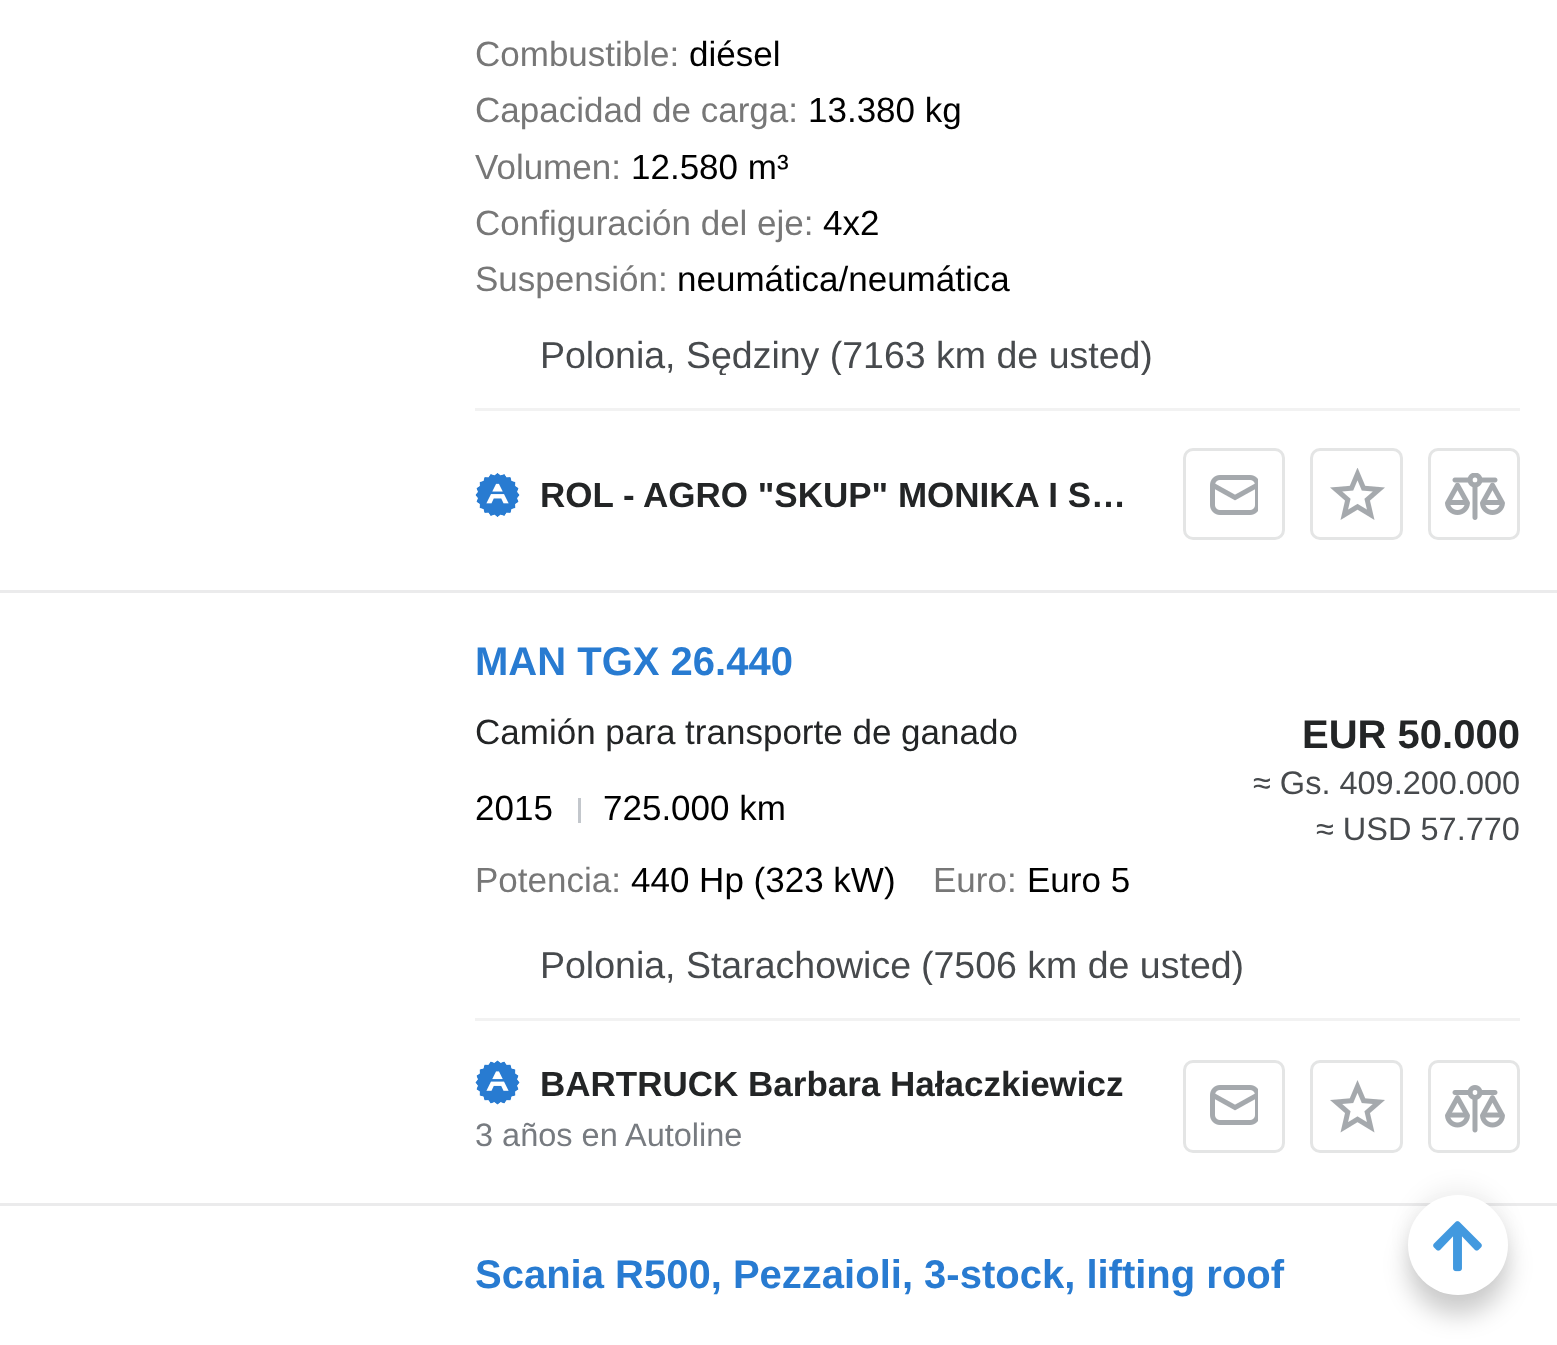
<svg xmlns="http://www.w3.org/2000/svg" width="1557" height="1345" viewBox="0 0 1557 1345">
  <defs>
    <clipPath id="clip1"><path d="M540 328h613v47H540z"/></clipPath>
    <clipPath id="clip2"><path d="M540 938h705v47H540z"/></clipPath>
  </defs>
  <rect width="100%" height="100%" fill="#fff"/>
  <path d="M475 408h1045v3H475z" fill="#f2f2f2"/>
  <image x="475" y="473" width="45" height="44" href="img/1.png"/>
  <rect x="1184.5" y="449.5" width="99" height="89" rx="8.5" fill="none" stroke="#e4e5e5" stroke-width="3"/>
  <image x="1210" y="475" width="48" height="40" href="img/2.png"/>
  <rect x="1311.5" y="449.5" width="90" height="89" rx="8.5" fill="none" stroke="#e4e5e5" stroke-width="3"/>
  <image x="1330" y="468" width="55" height="52" href="img/3.png"/>
  <rect x="1429.5" y="449.5" width="89" height="89" rx="8.5" fill="none" stroke="#e4e5e5" stroke-width="3"/>
  <image x="1445" y="473" width="60" height="47" href="img/4.png"/>
  <path d="M0 590h1557v3H0z" fill="#ebebec"/>
  <path d="M578 798h3v25H578z" fill="#c3c7cc"/>
  <path d="M475 1018h1045v3H475z" fill="#f2f2f2"/>
  <image x="475" y="1060" width="45" height="45" href="img/5.png"/>
  <rect x="1184.5" y="1061.5" width="99" height="90" rx="8.5" fill="none" stroke="#e4e5e5" stroke-width="3"/>
  <image x="1210" y="1085" width="48" height="40" href="img/2.png"/>
  <rect x="1311.5" y="1061.5" width="90" height="90" rx="8.5" fill="none" stroke="#e4e5e5" stroke-width="3"/>
  <image x="1330" y="1080" width="55" height="53" href="img/6.png"/>
  <rect x="1429.5" y="1061.5" width="89" height="90" rx="8.5" fill="none" stroke="#e4e5e5" stroke-width="3"/>
  <image x="1445" y="1085" width="60" height="48" href="img/7.png"/>
  <path d="M0 1203h1557v3H0z" fill="#ebebec"/>
  <rect x="1408" y="1185" width="100" height="100" rx="50" fill="#0000000d" filter="blur(10px)"/>
  <rect x="1408" y="1215" width="100" height="100" rx="50" fill="#00000033" filter="blur(12.5px)"/>
  <circle cx="1458" cy="1245" r="50" fill="#fff"/>
  <image x="1433" y="1221" width="49" height="51" href="img/8.png"/>
  <text x="475" y="66" font-family="Liberation Sans" font-size="35" fill="#777">Combustible:</text>
  <text x="689" y="66" font-family="Liberation Sans" font-size="35" fill="#000">diésel</text>
  <text x="475" y="122" font-family="Liberation Sans" font-size="35" fill="#777">Capacidad de carga:</text>
  <text x="808" y="122" font-family="Liberation Sans" font-size="35" fill="#000">13.380 kg</text>
  <text x="475" y="179" font-family="Liberation Sans" font-size="35" fill="#777">Volumen:</text>
  <text x="631" y="179" font-family="Liberation Sans" font-size="35" fill="#000">12.580 m³</text>
  <text x="475" y="235" font-family="Liberation Sans" font-size="35" fill="#777">Configuración del eje:</text>
  <text x="823" y="235" font-family="Liberation Sans" font-size="35" fill="#000">4x2</text>
  <text x="475" y="291" font-family="Liberation Sans" font-size="35" fill="#777">Suspensión:</text>
  <text x="677" y="291" font-family="Liberation Sans" font-size="35" fill="#000">neumática/neumática</text>
  <g clip-path="url(#clip1)">
    <text x="540" y="368" font-family="Liberation Sans" font-size="37.5" fill="#474a4d">Polonia, Sędziny (7163 km de usted)</text>
  </g>
  <text x="540" y="507" font-family="Liberation Sans" font-size="35" font-weight="bold" fill="#232526">ROL - AGRO "SKUP" MONIKA I S…</text>
  <text x="475" y="675" font-family="Liberation Sans" font-size="40" font-weight="bold" fill="#287bd1">MAN TGX 26.440</text>
  <text x="475" y="744" font-family="Liberation Sans" font-size="35" fill="#232526">Camión para transporte de ganado</text>
  <g font-family="Liberation Sans" font-size="35" fill="#000">
    <text x="475" y="820">2015</text>
    <text x="603" y="820">725.000 km</text>
  </g>
  <text x="475" y="892" font-family="Liberation Sans" font-size="35" fill="#777">Potencia:</text>
  <text x="631" y="892" font-family="Liberation Sans" font-size="35" fill="#000">440 Hp (323 kW)</text>
  <text x="933" y="892" font-family="Liberation Sans" font-size="35" fill="#777">Euro:</text>
  <text x="1027" y="892" font-family="Liberation Sans" font-size="35" fill="#000">Euro 5</text>
  <text x="1302" y="748" font-family="Liberation Sans" font-size="40" font-weight="bold" fill="#232526">EUR 50.000</text>
  <g font-family="Liberation Sans" font-size="32.5" fill="#474a4d">
    <text x="1253" y="794">≈ Gs. 409.200.000</text>
    <text x="1316" y="840">≈ USD 57.770</text>
  </g>
  <text x="540" y="978" font-family="Liberation Sans" font-size="37.5" fill="#474a4d">Polonia, Starachowice</text>
  <g clip-path="url(#clip2)">
    <text x="921" y="978" font-family="Liberation Sans" font-size="37.5" fill="#474a4d">(7506 km de usted)</text>
  </g>
  <text x="540" y="1096" font-family="Liberation Sans" font-size="35" font-weight="bold" fill="#232526">BARTRUCK Barbara Hałaczkiewicz</text>
  <text x="475" y="1146" font-family="Liberation Sans" font-size="32.5" fill="#777b80">3 años en Autoline</text>
  <text x="475" y="1288" font-family="Liberation Sans" font-size="40" font-weight="bold" fill="#287bd1">Scania R500, Pezzaioli, 3-stock, lifting roof</text>
</svg>
